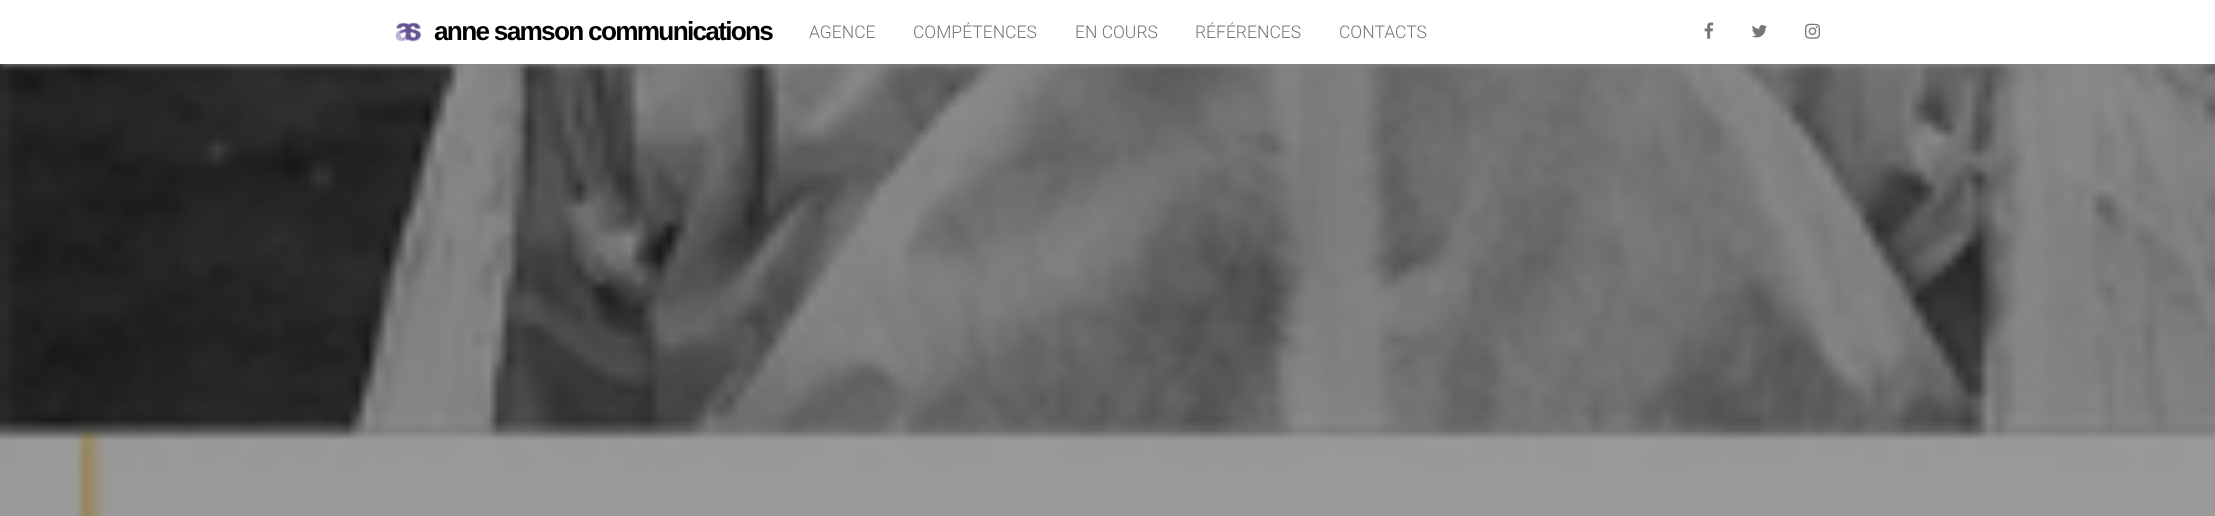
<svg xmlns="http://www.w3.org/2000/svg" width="2215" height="516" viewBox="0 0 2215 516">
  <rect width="100%" height="100%" fill="#fff"/>
  <image x="0" y="64" width="2215" height="452" href="img/5.png"/>
  <path d="M1 1h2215v64H1z" fill="#888" filter="blur(3px)"/>
  <path d="M0 0h2215v64H0z" fill="#fff"/>
  <image x="395" y="22" width="27" height="20" href="img/1.png"/>
  <image x="1704" y="22" width="10" height="17" href="img/2.png"/>
  <image x="1751" y="25" width="16" height="13" href="img/3.png"/>
  <image x="1805" y="23" width="15" height="16" href="img/4.png"/>
  <text x="434" y="40" font-family="Liberation Sans" font-size="26.25" font-weight="bold" letter-spacing="-1.75" fill="#000">anne samson communications</text>
  <g font-family="Roboto" font-size="17.5" font-weight="300" fill="#777">
    <text x="809" y="38">AGENCE</text>
    <text x="913" y="38">COMPÉTENCES</text>
    <text x="1075" y="38">EN COURS</text>
    <text x="1195" y="38">RÉFÉRENCES</text>
    <text x="1339" y="38">CONTACTS</text>
  </g>
</svg>
